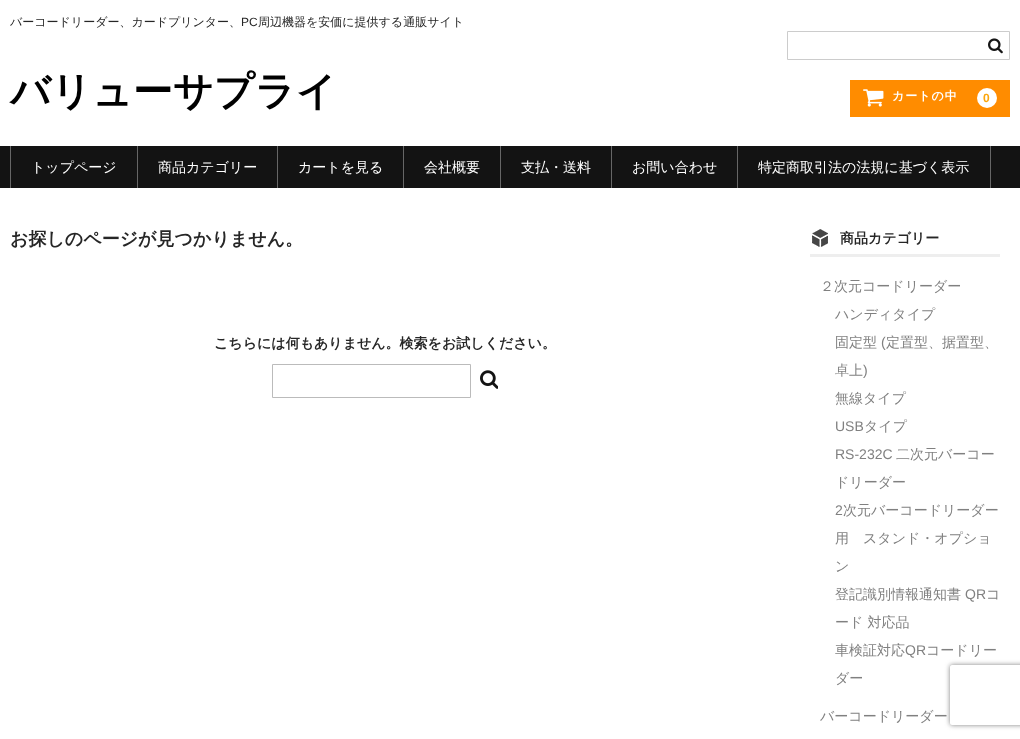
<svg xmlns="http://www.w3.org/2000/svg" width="1020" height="739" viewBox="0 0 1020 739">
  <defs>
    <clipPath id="clip1"><path d="M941 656H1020V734H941ZM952 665H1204C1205 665 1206 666 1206 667V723C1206 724 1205 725 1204 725H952C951 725 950 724 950 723V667C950 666 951 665 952 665Z" clip-rule="evenodd"/></clipPath>
  </defs>
  <rect width="100%" height="100%" fill="#fff"/>
  <path d="M787.5 31.5h222v28H787.5z" fill="none" stroke="#ccc"/>
  <image x="988" y="38" width="15" height="16" href="img/1.png"/>
  <path d="M850 80h160v37H850z" fill="#ff8c00"/>
  <image x="863" y="89" width="21" height="18" href="img/2.png"/>
  <circle cx="987" cy="98" r="10" fill="#fff"/>
  <path d="M0 146h1020v42H0z" fill="#131313"/>
  <path d="M137 146h1v42H137z" fill="#666"/>
  <path d="M10 146h1v42H10z" fill="#666"/>
  <path d="M277 146h1v42H277z" fill="#666"/>
  <path d="M403 146h1v42H403z" fill="#666"/>
  <path d="M500 146h1v42H500z" fill="#666"/>
  <path d="M611 146h1v42H611z" fill="#666"/>
  <path d="M737 146h1v42H737z" fill="#666"/>
  <path d="M990 146h1v42H990z" fill="#666"/>
  <path d="M272.5 364.5h198v33H272.5z" fill="none" stroke="#bbb"/>
  <image x="480" y="370" width="18" height="19" href="img/3.png"/>
  <path d="M810 254h190v3H810z" fill="#eee"/>
  <image x="812" y="229" width="16" height="18" href="img/4.png"/>
  <g clip-path="url(#clip1)">
    <rect x="950" y="665" width="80" height="60" rx="2" fill="#808080" filter="blur(2.5px)"/>
  </g>
  <text x="10" y="26" font-family="WenQuanYi Zen Hei" font-size="12" font-weight="500" fill="#262626">バーコードリーダー、カードプリンター、</text>
  <text x="241" y="26" font-family="Liberation Sans" font-size="12" fill="#262626">PC</text>
  <text x="258" y="26" font-family="WenQuanYi Zen Hei" font-size="12" font-weight="500" fill="#262626">周辺機器を安価に提供する通販サイト</text>
  <text x="10" y="105" font-family="WenQuanYi Zen Hei" font-size="40" font-weight="bold" fill="#000">バリューサプライ</text>
  <text x="892" y="100" font-family="WenQuanYi Zen Hei" font-size="12" font-weight="bold" letter-spacing="1" fill="#fff">カートの中</text>
  <text x="983" y="102" font-family="Liberation Sans" font-size="12" font-weight="bold" letter-spacing="1" fill="#fba60d">0</text>
  <g font-family="WenQuanYi Zen Hei" font-size="14" font-weight="500" fill="#fff">
    <text x="31" y="172">トップページ</text>
    <text x="158" y="172">商品カテゴリー</text>
    <text x="298" y="172">カートを見る</text>
    <text x="424" y="172">会社概要</text>
    <text x="521" y="172">支払・送料</text>
    <text x="632" y="172">お問い合わせ</text>
    <text x="758" y="172">特定商取引法の法規に基づく表示</text>
  </g>
  <text x="10" y="245" font-family="WenQuanYi Zen Hei" font-size="18" font-weight="bold" fill="#262626">お探しのページが見つかりません。</text>
  <g font-family="WenQuanYi Zen Hei" font-size="14" font-weight="bold" fill="#262626">
    <text x="214" y="348">こちらには何もありません。検索をお試しください。</text>
    <text x="840" y="243">商品カテゴリー</text>
  </g>
  <g font-family="WenQuanYi Zen Hei" font-size="14" font-weight="500" fill="#808080">
    <text x="820" y="291">２次元コードリーダー</text>
    <text x="835" y="319">ハンディタイプ</text>
    <text x="835" y="347">固定型</text>
  </g>
  <text x="881" y="347" font-family="Liberation Sans" font-size="14" fill="#808080">(</text>
  <g font-family="WenQuanYi Zen Hei" font-size="14" font-weight="500" fill="#808080">
    <text x="886" y="347">定置型、据置型、</text>
    <text x="835" y="375">卓上</text>
  </g>
  <text x="863" y="375" font-family="Liberation Sans" font-size="14" fill="#808080">)</text>
  <text x="835" y="403" font-family="WenQuanYi Zen Hei" font-size="14" font-weight="500" fill="#808080">無線タイプ</text>
  <text x="835" y="431" font-family="Liberation Sans" font-size="14" fill="#808080">USB</text>
  <text x="864" y="431" font-family="WenQuanYi Zen Hei" font-size="14" font-weight="500" fill="#808080">タイプ</text>
  <text x="835" y="459" font-family="Liberation Sans" font-size="14" fill="#808080">RS-232C</text>
  <g font-family="WenQuanYi Zen Hei" font-size="14" font-weight="500" fill="#808080">
    <text x="896" y="459">二次元バーコー</text>
    <text x="835" y="487">ドリーダー</text>
  </g>
  <text x="835" y="515" font-family="Liberation Sans" font-size="14" fill="#808080">2</text>
  <g font-family="WenQuanYi Zen Hei" font-size="14" font-weight="500" fill="#808080">
    <text x="843" y="515">次元バーコードリーダー</text>
    <text x="835" y="543">用　スタンド・オプショ</text>
    <text x="835" y="571">ン</text>
    <text x="835" y="599">登記識別情報通知書</text>
  </g>
  <text x="965" y="599" font-family="Liberation Sans" font-size="14" fill="#808080">QR</text>
  <g font-family="WenQuanYi Zen Hei" font-size="14" font-weight="500" fill="#808080">
    <text x="986" y="599">コ</text>
    <text x="835" y="627">ード 対応品</text>
    <text x="835" y="655">車検証対応</text>
  </g>
  <text x="905" y="655" font-family="Liberation Sans" font-size="14" fill="#808080">QR</text>
  <g font-family="WenQuanYi Zen Hei" font-size="14" font-weight="500" fill="#808080">
    <text x="926" y="655">コードリー</text>
    <text x="835" y="683">ダー</text>
    <text x="820" y="721">バーコードリーダー</text>
  </g>
</svg>
